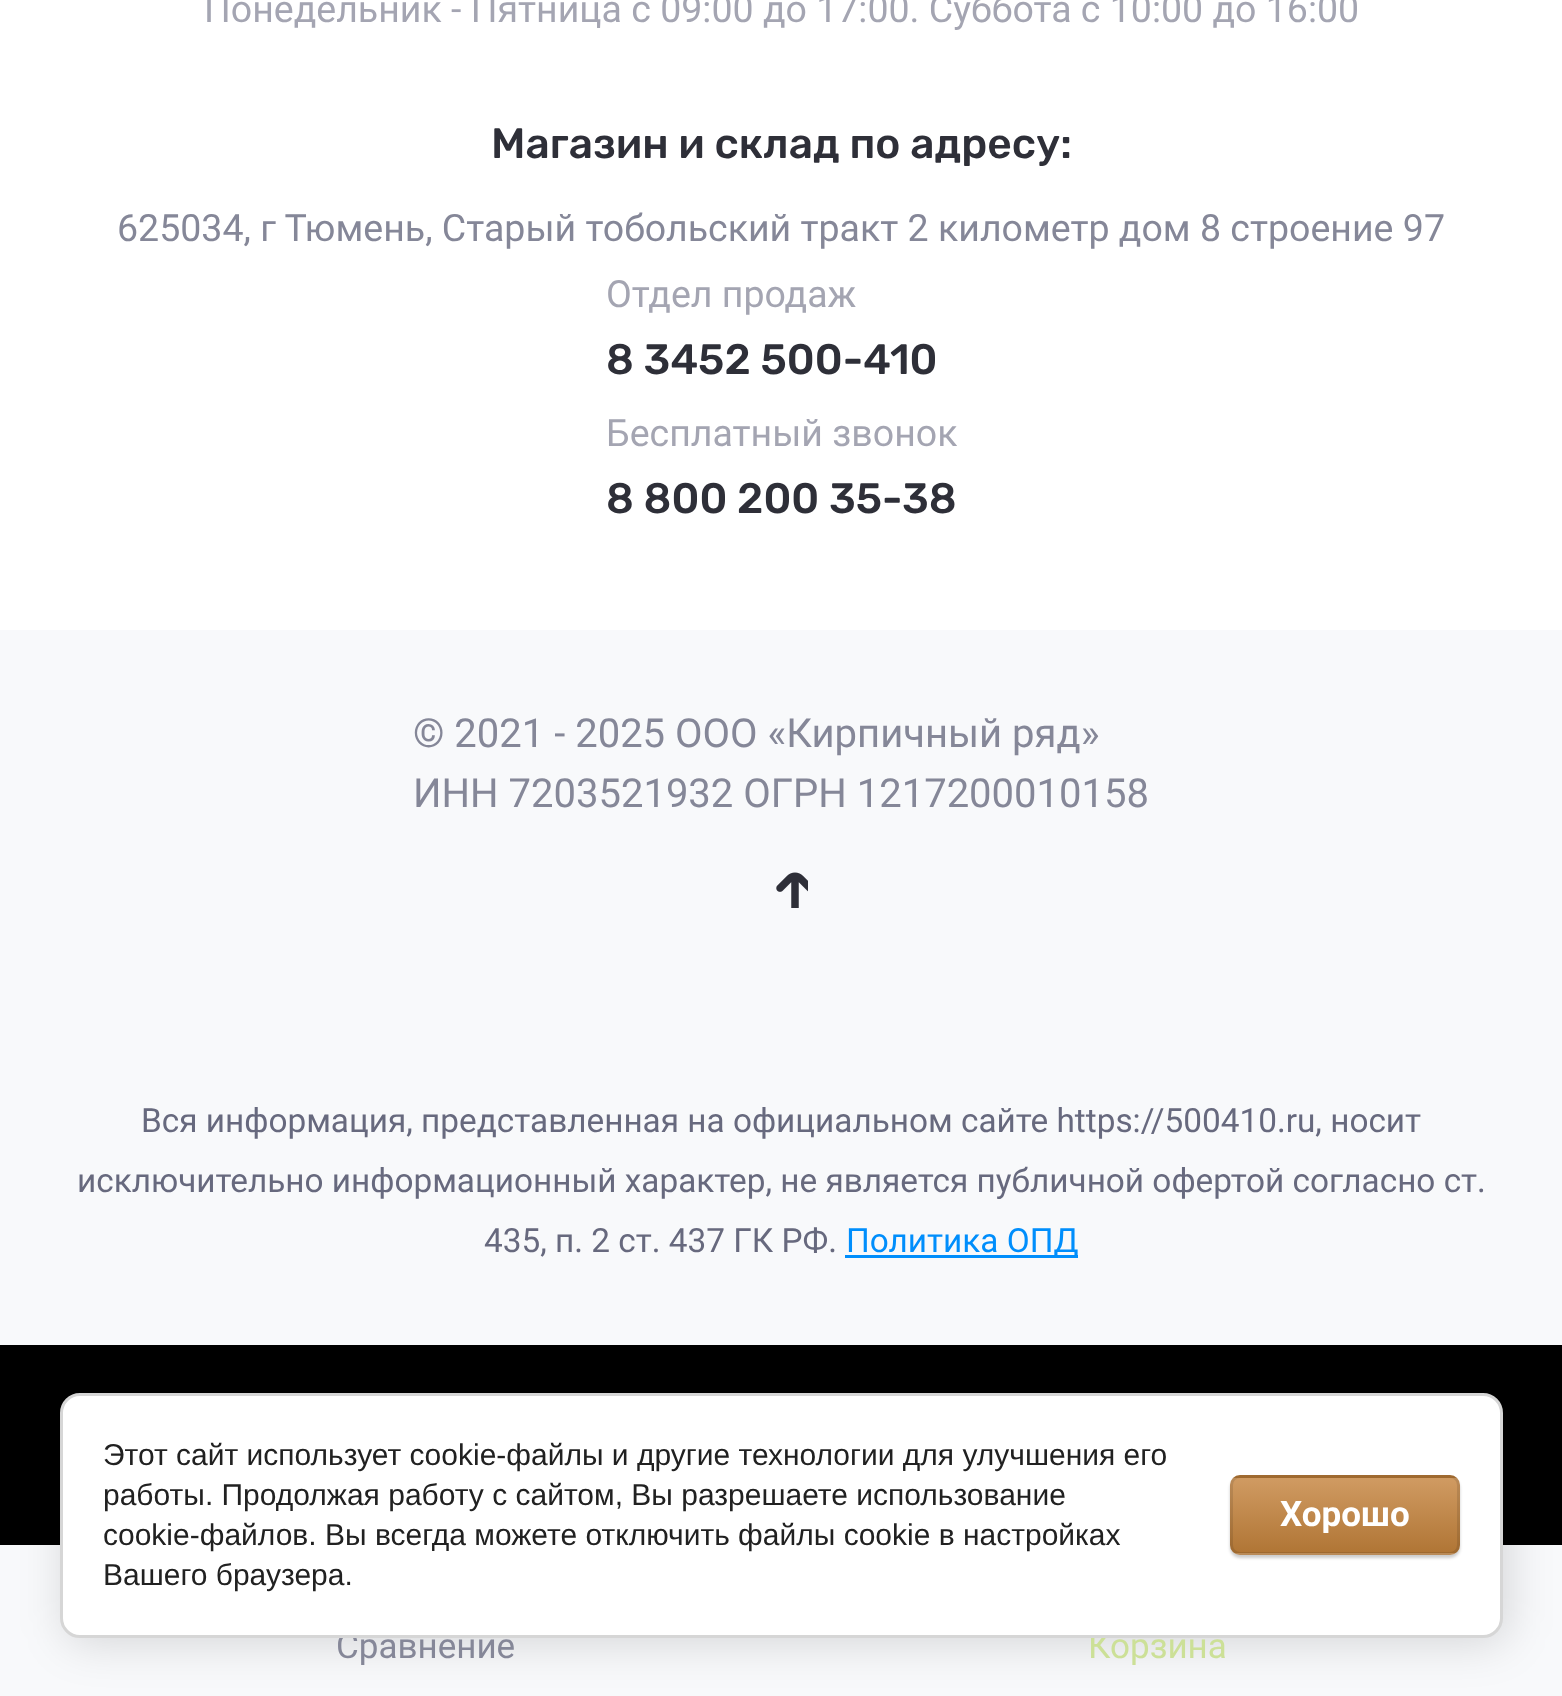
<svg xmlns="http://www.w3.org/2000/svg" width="1562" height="1696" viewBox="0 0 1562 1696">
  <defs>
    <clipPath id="clip1"><rect x="1230" y="1475" width="230" height="80" rx="10"/></clipPath>
    <linearGradient id="g1" gradientUnits="userSpaceOnUse" x1="1345" y1="1403" x2="1345" y2="1478"><stop offset="0" stop-color="#d09b62"/><stop offset="1" stop-color="#b07535"/></linearGradient>
    <linearGradient id="g2" gradientUnits="userSpaceOnUse" x1="1345" y1="1478" x2="1345" y2="1553"><stop offset="0" stop-color="#d09b62"/><stop offset="1" stop-color="#b07535"/></linearGradient>
    <linearGradient id="g3" gradientUnits="userSpaceOnUse" x1="1345" y1="1553" x2="1345" y2="1628"><stop offset="0" stop-color="#d09b62"/><stop offset="1" stop-color="#b07535"/></linearGradient>
  </defs>
  <rect width="100%" height="100%" fill="#fff"/>
  <path d="M0 630h1562v715H0z" fill="#f8f9fb"/>
  <image x="776" y="872" width="32" height="36" href="img/1.png"/>
  <path d="M845 1255h233v3H845z" fill="#008efc"/>
  <path d="M0 1345h1562v200H0z" fill="#000"/>
  <path d="M0 1545h1562v151H0z" fill="#f8f9fb"/>
  <rect x="65" y="1398" width="1443" height="245" rx="20" fill="#00000024" filter="blur(22.5px)"/>
  <text x="204" y="22" font-family="Roboto" font-size="37.5" fill="#a4a5b2">Понедельник - Пятница с 09:00 до 17:00. Суббота с 10:00 до 16:00</text>
  <text x="491" y="158" font-family="Rubik" font-size="42.5" font-weight="500" fill="#2e2f38">Магазин и склад по адресу:</text>
  <text x="117" y="241" font-family="Roboto" font-size="37.5" fill="#858798">625034, г Тюмень, Старый тобольский тракт 2 километр дом 8 строение 97</text>
  <text x="606" y="307" font-family="Roboto" font-size="37.5" fill="#a4a5b2">Отдел продаж</text>
  <text x="606" y="374" font-family="Rubik" font-size="42.5" font-weight="500" fill="#2e2f38">8 3452 500-410</text>
  <text x="606" y="446" font-family="Roboto" font-size="37.5" fill="#a4a5b2">Бесплатный звонок</text>
  <text x="606" y="513" font-family="Rubik" font-size="42.5" font-weight="500" fill="#2e2f38">8 800 200 35-38</text>
  <g font-family="Roboto" font-size="40" fill="#858798">
    <text x="413" y="747">© 2021 - 2025 ООО «Кирпичный ряд»</text>
    <text x="413" y="807">ИНН 7203521932 ОГРН 1217200010158</text>
  </g>
  <g font-family="Roboto" font-size="33.35" fill="#67697e">
    <text x="141" y="1132">Вся информация, представленная на официальном сайте https://500410.ru, носит</text>
    <text x="77" y="1192">исключительно информационный характер, не является публичной офертой согласно ст.</text>
    <text x="484" y="1252">435, п. 2 ст. 437 ГК РФ.</text>
  </g>
  <text x="846" y="1252" font-family="Roboto" font-size="33.35" fill="#008efc">Политика ОПД</text>
  <text x="336" y="1658" font-family="Roboto" font-size="35" fill="#858798">Сравнение</text>
  <text x="1088" y="1658" font-family="Roboto" font-size="35" fill="#cce097">Корзина</text>
  <rect x="61.5" y="1394.5" width="1440" height="242" rx="18.5" fill="#fff" stroke="#d6d6d6" stroke-width="3"/>
  <g font-family="Liberation Sans" font-size="30" fill="#212121">
    <text x="103" y="1465">Этот сайт использует cookie-файлы и другие технологии для улучшения его</text>
    <text x="103" y="1505">работы. Продолжая работу с сайтом, Вы разрешаете использование</text>
    <text x="103" y="1545">cookie-файлов. Вы всегда можете отключить файлы cookie в настройках</text>
    <text x="103" y="1585">Вашего браузера.</text>
  </g>
  <rect x="1230" y="1478" width="230" height="80" rx="10" fill="#00000033" filter="blur(1.5px)"/>
  <g clip-path="url(#clip1)">
    <path d="M1230 1475h230v3H1230z" fill="url(#g1)"/>
    <path d="M1230 1478h230v75H1230z" fill="url(#g2)"/>
    <path d="M1230 1553h230v2H1230z" fill="url(#g3)"/>
  </g>
  <rect x="1231.5" y="1476.5" width="227" height="77" rx="8.5" fill="none" stroke="#0000001a" stroke-width="3"/>
  <text x="1280" y="1526" font-family="Roboto" font-size="35" font-weight="bold" fill="#fff">Хорошо</text>
</svg>
